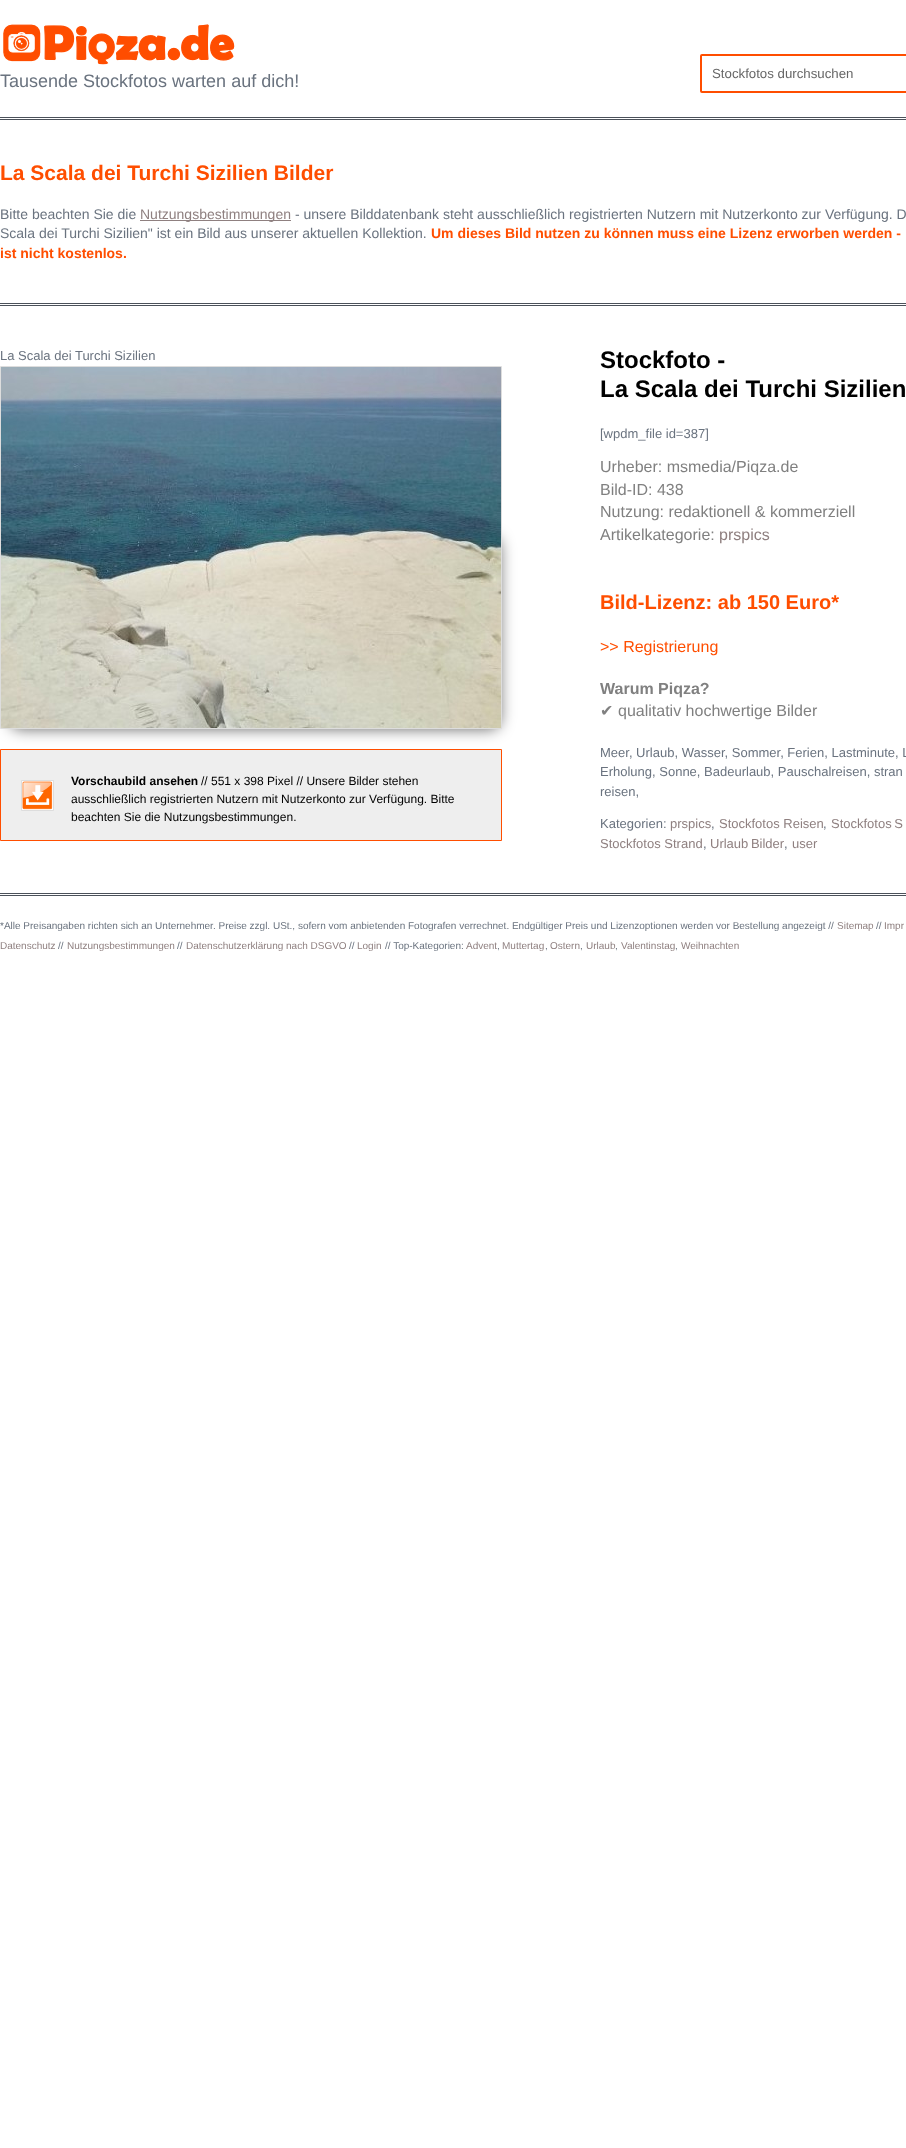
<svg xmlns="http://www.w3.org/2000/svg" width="906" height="2148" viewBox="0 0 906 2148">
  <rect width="100%" height="100%" fill="#fff"/>
  <path d="M0 117h906v1H0z" fill="#4b515a"/>
  <path d="M0 119h906v1H0z" fill="#4b515a"/>
  <image x="3" y="24" width="232" height="41" href="img/1.png"/>
  <rect x="701" y="55" width="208" height="37" rx="1" fill="none" stroke="#ff4e00" stroke-width="2"/>
  <path d="M0 303h906v1H0z" fill="#4b515a"/>
  <path d="M0 305h906v1H0z" fill="#4b515a"/>
  <path d="M140 220h151v1H140z" fill="#8f8080"/>
  <rect x="10" y="537" width="490" height="192" rx="10" fill="#00000099" filter="blur(7.5px)"/>
  <path d="M0.5 366.5h501v362H0.5z" fill="none" stroke="#ddd"/>
  <image x="1" y="367" width="500" height="361" href="img/2.png"/>
  <path d="M0.5 749.5h501v91H0.5z" fill="#eee" stroke="#ff4e00"/>
  <path d="M21.5 780.5h32v30H21.5z" fill="none" stroke="#ddd"/>
  <image x="22" y="781" width="31" height="29" href="img/3.png"/>
  <path d="M0 893h906v1H0z" fill="#4b515a"/>
  <path d="M0 895h906v1H0z" fill="#4b515a"/>
  <text x="0" y="87" font-family="Liberation Sans" font-size="18" fill="#6a737f">Tausende Stockfotos warten auf dich!</text>
  <text x="712" y="78" font-family="Liberation Sans" font-size="13.25" fill="#666">Stockfotos durchsuchen</text>
  <text x="0" y="180" font-family="Liberation Sans" font-size="21" font-weight="bold" fill="#ff4e00">La Scala dei Turchi Sizilien Bilder</text>
  <text x="0" y="219" font-family="Liberation Sans" font-size="14" fill="#6a737f">Bitte beachten Sie die</text>
  <text x="140" y="219" font-family="Liberation Sans" font-size="14" fill="#8f8080">Nutzungsbestimmungen</text>
  <g font-family="Liberation Sans" font-size="14" fill="#6a737f">
    <text x="295" y="219">- unsere Bilddatenbank steht ausschließlich registrierten Nutzern mit Nutzerkonto zur Verfügung. D</text>
    <text x="0" y="238">Scala dei Turchi Sizilien" ist ein Bild aus unserer aktuellen Kollektion.</text>
  </g>
  <g font-family="Liberation Sans" font-size="14" font-weight="bold" fill="#ff4e00">
    <text x="431" y="238">Um dieses Bild nutzen zu können muss eine Lizenz erworben werden -</text>
    <text x="0" y="258">ist nicht kostenlos.</text>
  </g>
  <text x="0" y="360" font-family="Liberation Sans" font-size="13" fill="#6a737f">La Scala dei Turchi Sizilien</text>
  <text x="71" y="785" font-family="Liberation Sans" font-size="12" font-weight="bold" fill="#000">Vorschaubild ansehen</text>
  <g font-family="Liberation Sans" font-size="12" fill="#000">
    <text x="201" y="785">// 551 x 398 Pixel // Unsere Bilder stehen</text>
    <text x="71" y="803">ausschließlich registrierten Nutzern mit Nutzerkonto zur Verfügung. Bitte</text>
    <text x="71" y="821">beachten Sie die Nutzungsbestimmungen.</text>
  </g>
  <g font-family="Liberation Sans" font-size="24" font-weight="bold" fill="#000">
    <text x="600" y="368">Stockfoto -</text>
    <text x="600" y="397">La Scala dei Turchi Sizilien</text>
  </g>
  <text x="600" y="438" font-family="Liberation Sans" font-size="13" fill="#6a737f">[wpdm_file id=387]</text>
  <g font-family="Liberation Sans" font-size="16" fill="#808080">
    <text x="600" y="472">Urheber: msmedia/Piqza.de</text>
    <text x="600" y="495">Bild-ID: 438</text>
    <text x="600" y="517">Nutzung: redaktionell &amp; kommerziell</text>
    <text x="600" y="540">Artikelkategorie:</text>
  </g>
  <text x="719" y="540" font-family="Liberation Sans" font-size="16" fill="#8f8080">prspics</text>
  <text x="600" y="609" font-family="Liberation Sans" font-size="20" font-weight="bold" fill="#ff4e00">Bild-Lizenz: ab 150 Euro*</text>
  <text x="600" y="652" font-family="Liberation Sans" font-size="16" fill="#ff4e00">&gt;&gt; Registrierung</text>
  <text x="600" y="694" font-family="Liberation Sans" font-size="16" font-weight="bold" fill="#808080">Warum Piqza?</text>
  <text x="600" y="716" font-family="DejaVu Sans" font-size="16" fill="#808080">✔</text>
  <text x="618" y="716" font-family="Liberation Sans" font-size="16" fill="#808080">qualitativ hochwertige Bilder</text>
  <g font-family="Liberation Sans" font-size="13" fill="#6a737f">
    <text x="600" y="757">Meer, Urlaub, Wasser, Sommer, Ferien, Lastminute, L</text>
    <text x="600" y="776">Erholung, Sonne, Badeurlaub, Pauschalreisen, stran</text>
    <text x="600" y="796">reisen,</text>
    <text x="600" y="828">Kategorien:</text>
  </g>
  <text x="670" y="828" font-family="Liberation Sans" font-size="13" fill="#8f8080">prspics</text>
  <text x="711" y="828" font-family="Liberation Sans" font-size="13" fill="#6a737f">,</text>
  <text x="719" y="828" font-family="Liberation Sans" font-size="13" fill="#8f8080">Stockfotos Reisen</text>
  <text x="823" y="828" font-family="Liberation Sans" font-size="13" fill="#6a737f">,</text>
  <g font-family="Liberation Sans" font-size="13" fill="#8f8080">
    <text x="831" y="828" word-spacing="-1">Stockfotos S</text>
    <text x="600" y="848">Stockfotos Strand</text>
  </g>
  <text x="703" y="848" font-family="Liberation Sans" font-size="13" fill="#6a737f">,</text>
  <text x="710" y="848" word-spacing="-1" font-family="Liberation Sans" font-size="13" fill="#8f8080">Urlaub Bilder</text>
  <text x="784" y="848" font-family="Liberation Sans" font-size="13" fill="#6a737f">,</text>
  <text x="792" y="848" font-family="Liberation Sans" font-size="13" fill="#8f8080">user</text>
  <text x="0" y="929" font-family="Liberation Sans" font-size="10" fill="#6a737f">*Alle Preisangaben richten sich an Unternehmer. Preise zzgl. USt., sofern vom anbietenden Fotografen verrechnet. Endgültiger Preis und Lizenzoptionen werden vor Bestellung angezeigt //</text>
  <text x="837" y="929" font-family="Liberation Sans" font-size="10" fill="#8f8080">Sitemap</text>
  <text x="876" y="929" font-family="Liberation Sans" font-size="10" fill="#6a737f">//</text>
  <g font-family="Liberation Sans" font-size="10" fill="#8f8080">
    <text x="884" y="929">Impr</text>
    <text x="0" y="949">Datenschutz</text>
  </g>
  <text x="58" y="949" font-family="Liberation Sans" font-size="10" fill="#6a737f">//</text>
  <text x="67" y="949" font-family="Liberation Sans" font-size="10" fill="#8f8080">Nutzungsbestimmungen</text>
  <text x="177" y="949" font-family="Liberation Sans" font-size="10" fill="#6a737f">//</text>
  <text x="186" y="949" font-family="Liberation Sans" font-size="10" fill="#8f8080">Datenschutzerklärung nach DSGVO</text>
  <text x="349" y="949" font-family="Liberation Sans" font-size="10" fill="#6a737f">//</text>
  <text x="357" y="949" font-family="Liberation Sans" font-size="10" fill="#8f8080">Login</text>
  <text x="385" y="949" font-family="Liberation Sans" font-size="10" fill="#6a737f">// Top-Kategorien:</text>
  <text x="466" y="949" font-family="Liberation Sans" font-size="10" fill="#8f8080">Advent</text>
  <text x="497" y="949" font-family="Liberation Sans" font-size="10" fill="#6a737f">,</text>
  <text x="502" y="949" font-family="Liberation Sans" font-size="10" fill="#8f8080">Muttertag</text>
  <text x="545" y="949" font-family="Liberation Sans" font-size="10" fill="#6a737f">,</text>
  <text x="550" y="949" font-family="Liberation Sans" font-size="10" fill="#8f8080">Ostern</text>
  <text x="580" y="949" font-family="Liberation Sans" font-size="10" fill="#6a737f">,</text>
  <text x="586" y="949" font-family="Liberation Sans" font-size="10" fill="#8f8080">Urlaub</text>
  <text x="615" y="949" font-family="Liberation Sans" font-size="10" fill="#6a737f">,</text>
  <text x="621" y="949" font-family="Liberation Sans" font-size="10" fill="#8f8080">Valentinstag</text>
  <text x="675" y="949" font-family="Liberation Sans" font-size="10" fill="#6a737f">,</text>
  <text x="681" y="949" font-family="Liberation Sans" font-size="10" fill="#8f8080">Weihnachten</text>
</svg>
